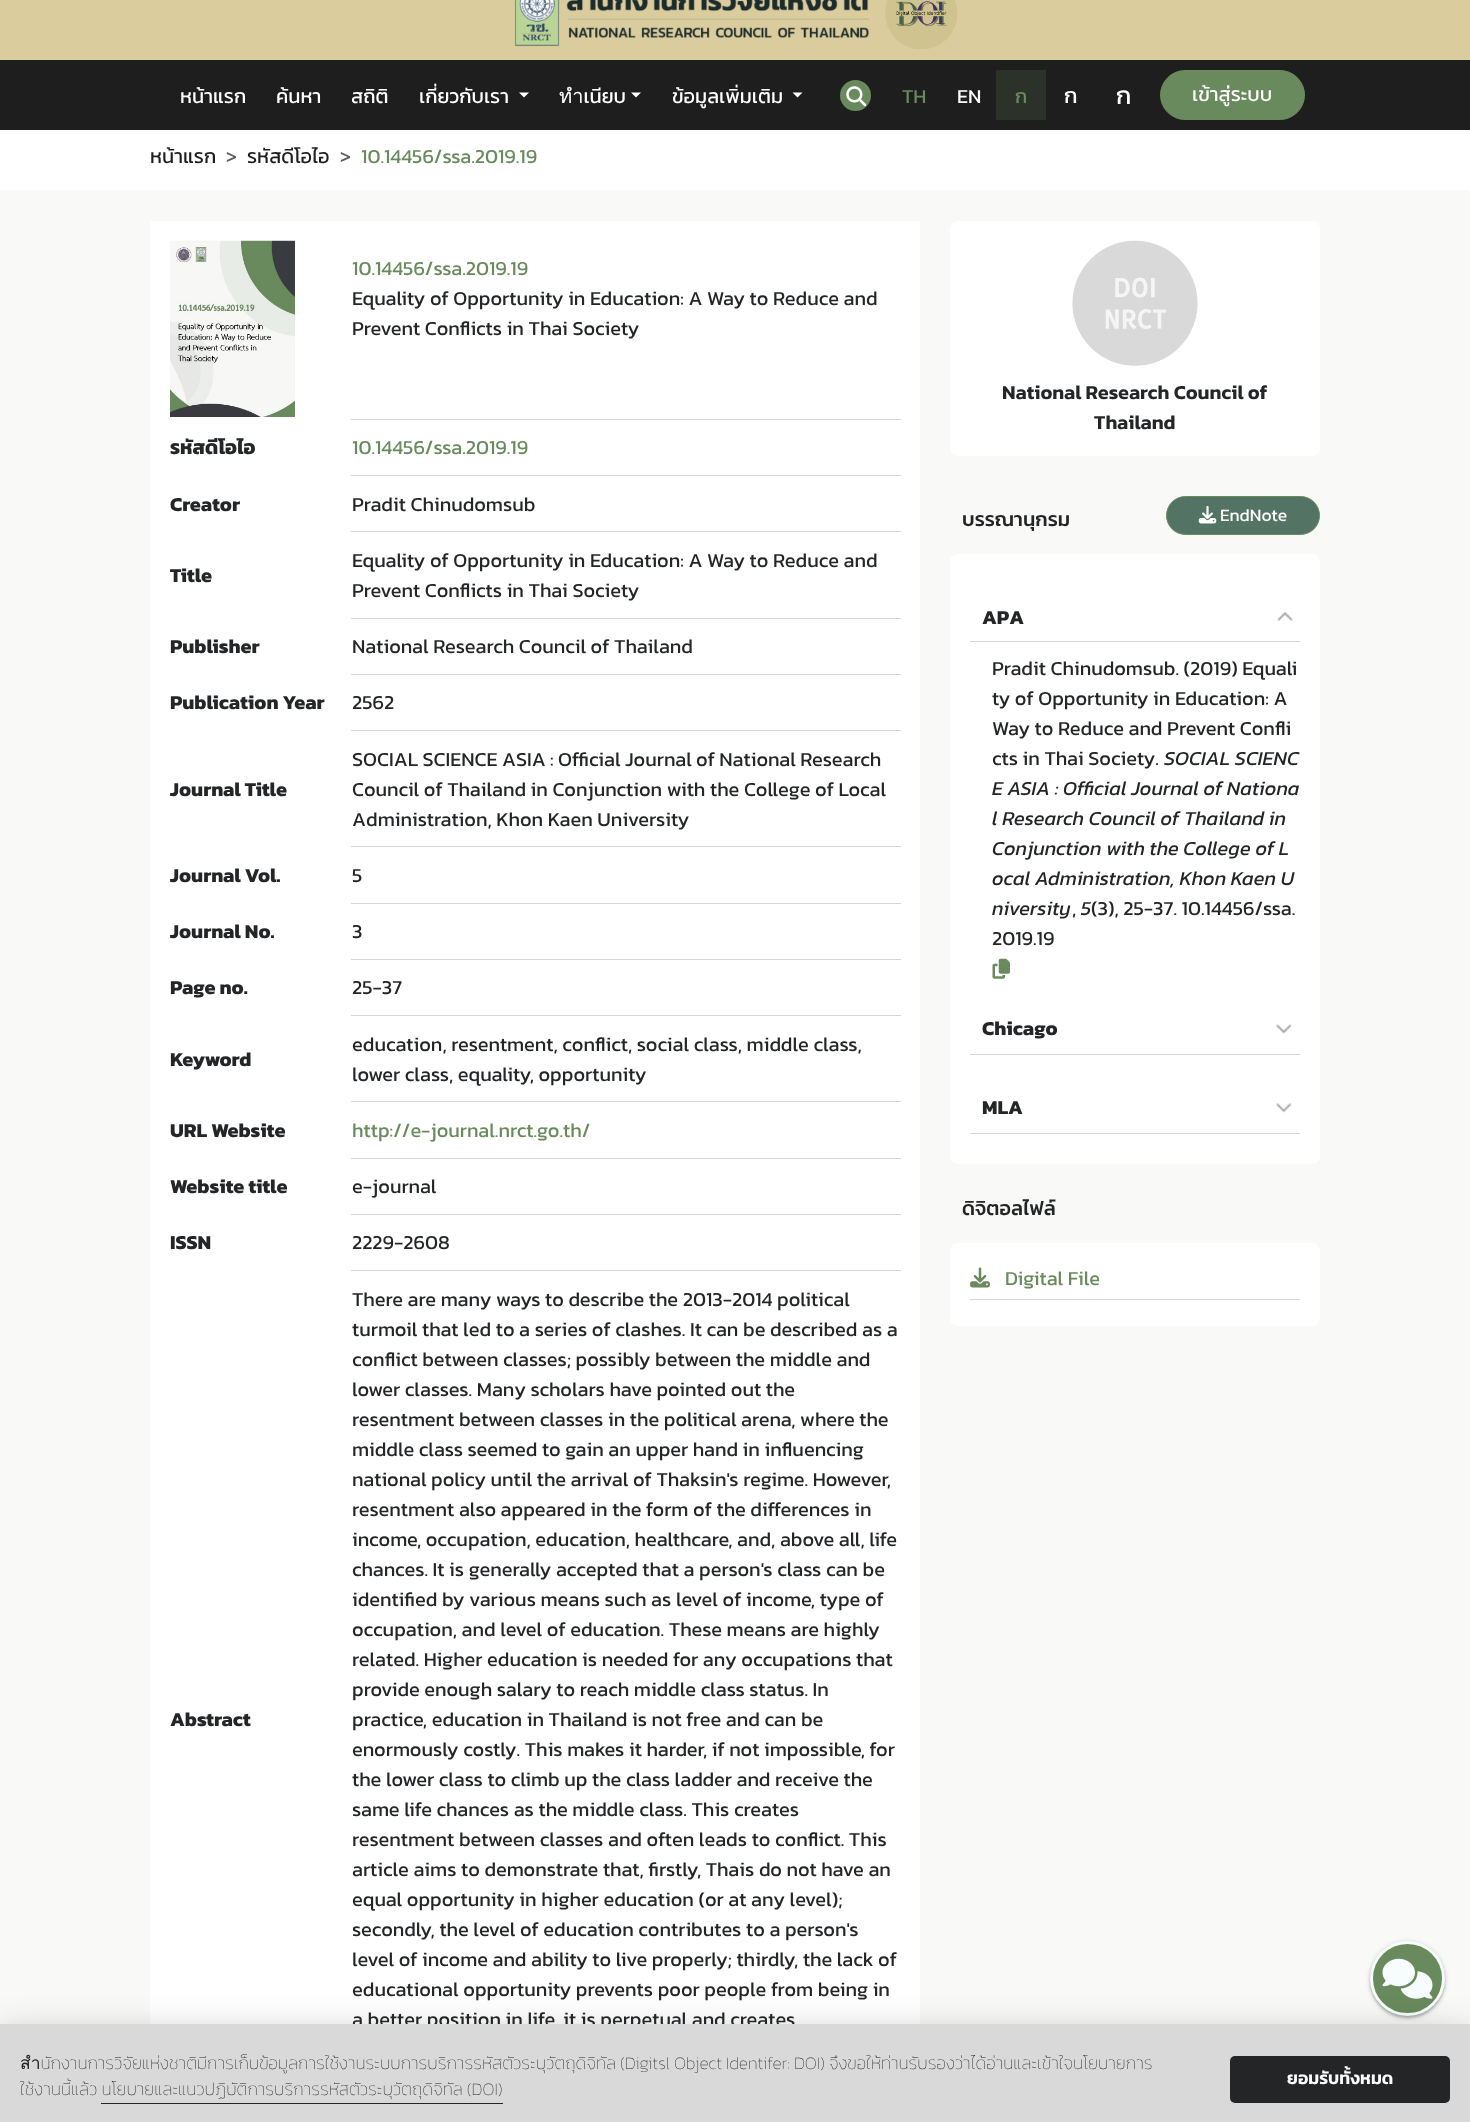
<svg xmlns="http://www.w3.org/2000/svg" width="1470" height="2122" viewBox="0 0 1470 2122">
  <rect width="100%" height="100%" fill="#fff"/>
  <path d="M0 0h1470v60H0z" fill="#dbcc9e"/>
  <image x="514" y="0" width="355" height="47" href="img/1.png"/>
  <image x="885" y="0" width="73" height="49" href="img/2.png"/>
  <path d="M0 60h1470v70H0z" fill="#1e1e1e"/>
  <path d="M519 92.5H529L524 97.5Z" fill="#fff"/>
  <path d="M631 92.5H641L636 97.5Z" fill="#fff"/>
  <path d="M792.5 92.5H802.5L797.5 97.5Z" fill="#fff"/>
  <circle cx="855.5" cy="95.5" r="15.5" fill="#698a5d"/>
  <image x="846" y="86" width="21" height="21" href="img/3.png"/>
  <path d="M996 70h50v50H996z" fill="#2c3129"/>
  <rect x="1160.5" y="70.5" width="144" height="49" rx="24.5" fill="#698a5d" stroke="#698a5d"/>
  <path d="M0 190h1470v1834H0z" fill="#f9f9f7"/>
  <path d="M150 221h770v1803H150z" fill="#fff"/>
  <image x="170" y="240" width="125" height="177" href="img/4.png"/>
  <path d="M351 419h550v1H351z" fill="#d6d6d6"/>
  <path d="M351 475h550v1H351z" fill="#d6d6d6"/>
  <path d="M351 531h550v1H351z" fill="#d6d6d6"/>
  <path d="M351 618h550v1H351z" fill="#d6d6d6"/>
  <path d="M351 674h550v1H351z" fill="#d6d6d6"/>
  <path d="M351 730h550v1H351z" fill="#d6d6d6"/>
  <path d="M351 846h550v1H351z" fill="#d6d6d6"/>
  <path d="M351 903h550v1H351z" fill="#d6d6d6"/>
  <path d="M351 959h550v1H351z" fill="#d6d6d6"/>
  <path d="M351 1015h550v1H351z" fill="#d6d6d6"/>
  <path d="M351 1101h550v1H351z" fill="#d6d6d6"/>
  <path d="M351 1158h550v1H351z" fill="#d6d6d6"/>
  <path d="M351 1214h550v1H351z" fill="#d6d6d6"/>
  <path d="M351 1270h550v1H351z" fill="#d6d6d6"/>
  <rect x="950" y="221" width="370" height="235" rx="8" fill="#fff"/>
  <image x="1072" y="240" width="126" height="126" href="img/5.png"/>
  <rect x="1166.5" y="496.5" width="153" height="38" rx="19" fill="#537465" stroke="#698a5d"/>
  <image x="1198" y="505" width="19" height="19" href="img/6.png"/>
  <rect x="950" y="554" width="370" height="610" rx="8" fill="#fff"/>
  <image x="1277" y="612" width="16" height="9" href="img/7.png"/>
  <path d="M970 641h330v1H970z" fill="#d6d6d6"/>
  <image x="992" y="958" width="18" height="21" href="img/8.png"/>
  <image x="1276" y="1024" width="16" height="10" href="img/9.png"/>
  <path d="M970 1054h330v1H970z" fill="#d6d6d6"/>
  <image x="1276" y="1103" width="16" height="10" href="img/10.png"/>
  <path d="M970 1133h330v1H970z" fill="#d6d6d6"/>
  <rect x="950" y="1243" width="370" height="83" rx="8" fill="#fff"/>
  <path d="M970 1299h330v1H970z" fill="#d6d6d6"/>
  <image x="970" y="1267" width="20" height="21" href="img/11.png"/>
  <rect x="1369" y="1941" width="77" height="78" rx="38.5" fill="#3e404026" filter="blur(2px)"/>
  <rect x="1370" y="1943" width="75" height="75" rx="37.5" fill="#3e40404d" filter="blur(1px)"/>
  <circle cx="1407.5" cy="1978.5" r="36" fill="#698a5d" stroke="#f7fcfc" stroke-width="3"/>
  <image x="1382" y="1958" width="51" height="41" href="img/12.png"/>
  <path d="M0 2036h1470v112H0z" fill="#02020247" filter="blur(19px)"/>
  <g font-family="Kanit" font-size="20" fill="#fff">
    <text x="180" y="103">หน้าแรก</text>
    <text x="276" y="103">ค้นหา</text>
    <text x="351" y="103">สถิติ</text>
    <text x="419" y="103">เกี่ยวกับเรา</text>
    <text x="559" y="103">ทำเนียบ</text>
    <text x="672" y="103">ข้อมูลเพิ่มเติม</text>
  </g>
  <text x="902" y="103" font-family="Kanit" font-size="20" fill="#698a5d">TH</text>
  <text x="957" y="103" font-family="Kanit" font-size="20" fill="#fff">EN</text>
  <text x="1015" y="103" font-family="Kanit" font-size="20" fill="#698a5d">ก</text>
  <text x="1064" y="103" font-family="Kanit" font-size="22" fill="#fff">ก</text>
  <text x="1116" y="104" font-family="Kanit" font-size="25" fill="#fff">ก</text>
  <text x="1192" y="101" font-family="Kanit" font-size="20" fill="#fff">เข้าสู่ระบบ</text>
  <text x="150" y="163" font-family="Kanit" font-size="20" fill="#1e1e1e">หน้าแรก</text>
  <text x="226" y="163" font-family="Kanit" font-size="20" fill="#5a5c5c">&gt;</text>
  <text x="247" y="163" font-family="Kanit" font-size="20" fill="#1e1e1e">รหัสดีโอไอ</text>
  <text x="340" y="163" font-family="Kanit" font-size="20" fill="#5a5c5c">&gt;</text>
  <g font-family="Kanit" font-size="20" fill="#698a5d">
    <text x="361" y="163">10.14456/ssa.2019.19</text>
    <text x="352" y="275">10.14456/ssa.2019.19</text>
  </g>
  <g font-family="Kanit" font-size="20" fill="#232526">
    <text x="352" y="305">Equality of Opportunity in Education: A Way to Reduce and</text>
    <text x="352" y="335">Prevent Conflicts in Thai Society</text>
  </g>
  <text x="170" y="454" font-family="Kanit" font-size="20" font-weight="bold" fill="#232526">รหัสดีโอไอ</text>
  <text x="352" y="454" font-family="Kanit" font-size="20" fill="#698a5d">10.14456/ssa.2019.19</text>
  <text x="170" y="511" font-family="Kanit" font-size="20" font-weight="bold" fill="#232526">Creator</text>
  <text x="352" y="511" font-family="Kanit" font-size="20" fill="#232526">Pradit Chinudomsub</text>
  <text x="170" y="582" font-family="Kanit" font-size="20" font-weight="bold" fill="#232526">Title</text>
  <g font-family="Kanit" font-size="20" fill="#232526">
    <text x="352" y="567">Equality of Opportunity in Education: A Way to Reduce and</text>
    <text x="352" y="597">Prevent Conflicts in Thai Society</text>
  </g>
  <text x="170" y="653" font-family="Kanit" font-size="20" font-weight="bold" fill="#232526">Publisher</text>
  <text x="352" y="653" font-family="Kanit" font-size="20" fill="#232526">National Research Council of Thailand</text>
  <text x="170" y="709" font-family="Kanit" font-size="20" font-weight="bold" fill="#232526">Publication Year</text>
  <text x="352" y="709" font-family="Kanit" font-size="20" fill="#232526">2562</text>
  <text x="170" y="796" font-family="Kanit" font-size="20" font-weight="bold" fill="#232526">Journal Title</text>
  <g font-family="Kanit" font-size="20" fill="#232526">
    <text x="352" y="766" word-spacing="-0.25">SOCIAL SCIENCE ASIA : Official Journal of National Research</text>
    <text x="352" y="796">Council of Thailand in Conjunction with the College of Local</text>
    <text x="352" y="826">Administration, Khon Kaen University</text>
  </g>
  <text x="170" y="882" font-family="Kanit" font-size="20" font-weight="bold" fill="#232526">Journal Vol.</text>
  <text x="352" y="882" font-family="Kanit" font-size="20" fill="#232526">5</text>
  <text x="170" y="938" font-family="Kanit" font-size="20" font-weight="bold" fill="#232526">Journal No.</text>
  <text x="352" y="938" font-family="Kanit" font-size="20" fill="#232526">3</text>
  <text x="170" y="994" font-family="Kanit" font-size="20" font-weight="bold" fill="#232526">Page no.</text>
  <text x="352" y="994" font-family="Kanit" font-size="20" fill="#232526">25-37</text>
  <text x="170" y="1066" font-family="Kanit" font-size="20" font-weight="bold" fill="#232526">Keyword</text>
  <g font-family="Kanit" font-size="20" fill="#232526">
    <text x="352" y="1051">education, resentment, conflict, social class, middle class,</text>
    <text x="352" y="1081">lower class, equality, opportunity</text>
  </g>
  <text x="170" y="1137" font-family="Kanit" font-size="20" font-weight="bold" fill="#232526">URL Website</text>
  <text x="352" y="1137" font-family="Kanit" font-size="20" fill="#698a5d">http://e-journal.nrct.go.th/</text>
  <text x="170" y="1193" font-family="Kanit" font-size="20" font-weight="bold" fill="#232526">Website title</text>
  <text x="352" y="1193" font-family="Kanit" font-size="20" fill="#232526">e-journal</text>
  <text x="170" y="1249" font-family="Kanit" font-size="20" font-weight="bold" fill="#232526">ISSN</text>
  <text x="352" y="1249" font-family="Kanit" font-size="20" fill="#232526">2229-2608</text>
  <text x="170" y="1726" font-family="Kanit" font-size="20" font-weight="bold" fill="#232526">Abstract</text>
  <g font-family="Kanit" font-size="20" fill="#232526">
    <text x="352" y="1306">There are many ways to describe the 2013-2014 political</text>
    <text x="352" y="1336">turmoil that led to a series of clashes. It can be described as a</text>
    <text x="352" y="1366">conflict between classes; possibly between the middle and</text>
    <text x="352" y="1396">lower classes. Many scholars have pointed out the</text>
    <text x="352" y="1426">resentment between classes in the political arena, where the</text>
    <text x="352" y="1456">middle class seemed to gain an upper hand in influencing</text>
    <text x="352" y="1486">national policy until the arrival of Thaksin's regime. However,</text>
    <text x="352" y="1516">resentment also appeared in the form of the differences in</text>
    <text x="352" y="1546">income, occupation, education, healthcare, and, above all, life</text>
    <text x="352" y="1576">chances. It is generally accepted that a person's class can be</text>
    <text x="352" y="1606">identified by various means such as level of income, type of</text>
    <text x="352" y="1636">occupation, and level of education. These means are highly</text>
    <text x="352" y="1666">related. Higher education is needed for any occupations that</text>
    <text x="352" y="1696">provide enough salary to reach middle class status. In</text>
    <text x="352" y="1726">practice, education in Thailand is not free and can be</text>
    <text x="352" y="1756">enormously costly. This makes it harder, if not impossible, for</text>
    <text x="352" y="1786">the lower class to climb up the class ladder and receive the</text>
    <text x="352" y="1816">same life chances as the middle class. This creates</text>
    <text x="352" y="1846">resentment between classes and often leads to conflict. This</text>
    <text x="352" y="1876">article aims to demonstrate that, firstly, Thais do not have an</text>
    <text x="352" y="1906">equal opportunity in higher education (or at any level);</text>
    <text x="352" y="1936">secondly, the level of education contributes to a person's</text>
    <text x="352" y="1966">level of income and ability to live properly; thirdly, the lack of</text>
    <text x="352" y="1996">educational opportunity prevents poor people from being in</text>
    <text x="352" y="2026">a better position in life, it is perpetual and creates</text>
  </g>
  <g font-family="Kanit" font-size="20" font-weight="600" fill="#232526">
    <text x="1002" y="399">National Research Council of</text>
    <text x="1094" y="429">Thailand</text>
  </g>
  <text x="962" y="526" font-family="Kanit" font-size="20" font-weight="500" fill="#232526">บรรณานุกรม</text>
  <text x="1220" y="521" font-family="Kanit" font-size="17.5" fill="#fff">EndNote</text>
  <text x="982" y="624" font-family="Kanit" font-size="20" font-weight="bold" fill="#232526">APA</text>
  <g font-family="Kanit" font-size="20" fill="#232526">
    <text x="992" y="675">Pradit Chinudomsub. (2019) Equali</text>
    <text x="992" y="705">ty of Opportunity in Education: A</text>
    <text x="992" y="735">Way to Reduce and Prevent Confli</text>
    <text x="992" y="765">cts in Thai Society.</text>
  </g>
  <g font-family="Kanit" font-size="20" font-style="italic" fill="#232526">
    <text x="1164" y="765">SOCIAL SCIENC</text>
    <text x="992" y="795">E ASIA : Official Journal of Nationa</text>
    <text x="992" y="825">l Research Council of Thailand in</text>
    <text x="992" y="855">Conjunction with the College of L</text>
    <text x="992" y="885">ocal Administration, Khon Kaen U</text>
    <text x="992" y="915">niversity</text>
  </g>
  <text x="1072" y="915" font-family="Kanit" font-size="20" fill="#232526">,</text>
  <text x="1081" y="915" font-family="Kanit" font-size="20" font-style="italic" fill="#232526">5</text>
  <g font-family="Kanit" font-size="20" fill="#232526">
    <text x="1091" y="915">(3), 25-37. 10.14456/ssa.</text>
    <text x="992" y="945">2019.19</text>
  </g>
  <g font-family="Kanit" font-size="20" font-weight="bold" fill="#232526">
    <text x="982" y="1035">Chicago</text>
    <text x="982" y="1114">MLA</text>
  </g>
  <text x="962" y="1215" font-family="Kanit" font-size="20" font-weight="500" fill="#232526">ดิจิตอลไฟล์</text>
  <text x="1005" y="1285" font-family="Kanit" font-size="20" fill="#698a5d">Digital File</text>
  <path d="M0 2024h1470v98H0z" fill="#d9d9d9"/>
  <g font-family="Kanit" font-size="17.5" font-weight="100" fill="#232526">
    <text x="20" y="2069">สำนักงานการวิจัยแห่งชาติมีการเก็บข้อมูลการใช้งานระบบการบริการรหัสตัวระบุวัตถุดิจิทัล (Digitsl Object Identifer: DOI) จึงขอให้ท่านรับรองว่าได้อ่านและเข้าใจนโยบายการ</text>
    <text x="20" y="2095">ใช้งานนี้แล้ว นโยบายและแนวปฏิบัติการบริการรหัสตัวระบุวัตถุดิจิทัล (DOI)</text>
  </g>
  <path d="M101 2103h402v1H101z" fill="#232526"/>
  <rect x="1230" y="2056" width="220" height="47" rx="5" fill="#232526"/>
  <text x="1287" y="2084" font-family="Kanit" font-size="17.5" font-weight="600" fill="#fff">ยอมรับทั้งหมด</text>
</svg>
